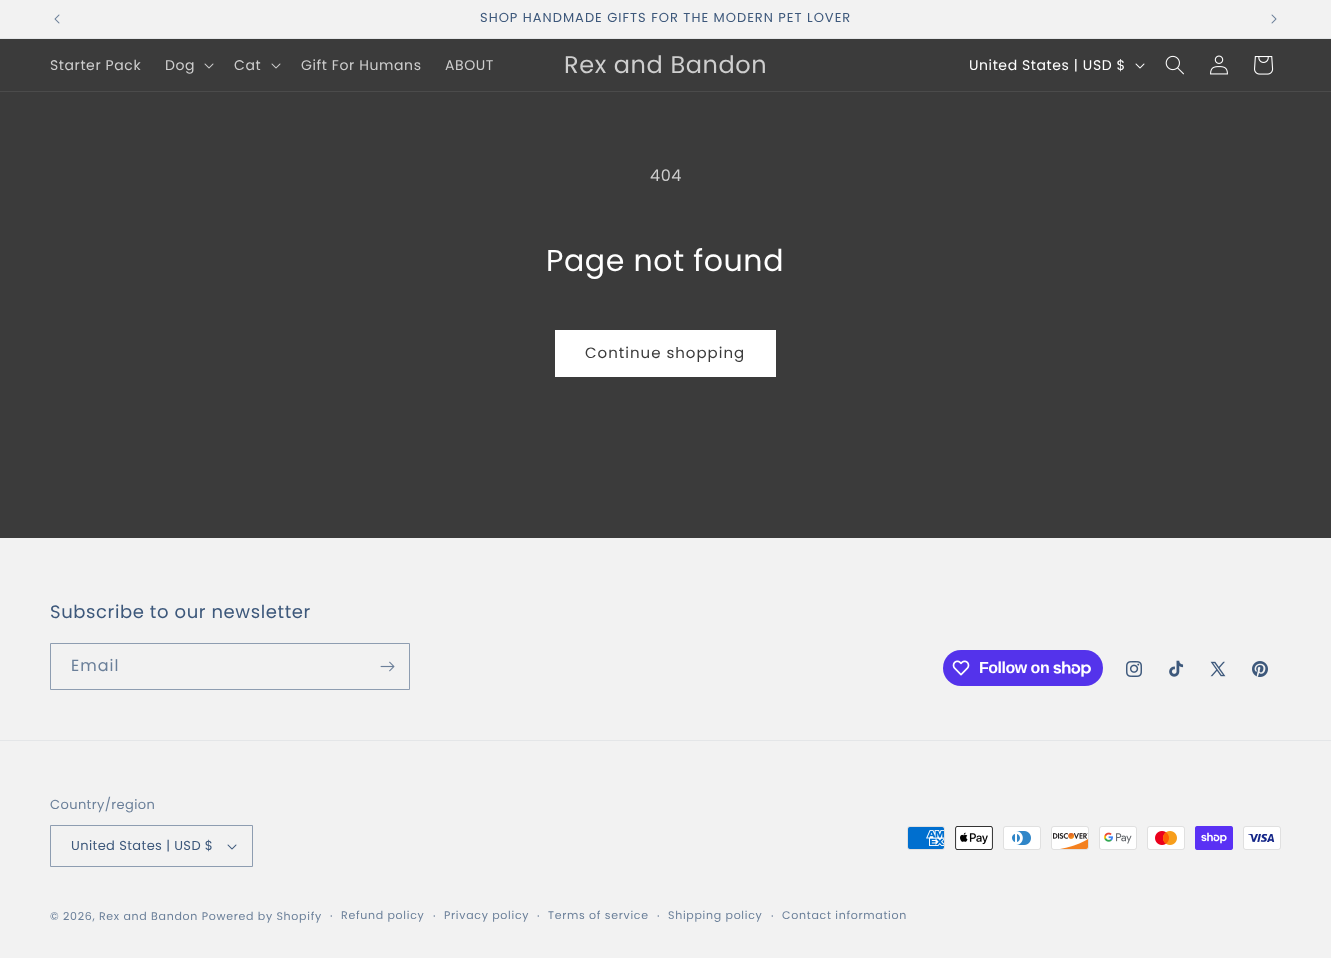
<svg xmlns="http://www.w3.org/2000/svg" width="1331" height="958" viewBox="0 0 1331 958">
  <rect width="100%" height="100%" fill="#3b3b3b"/>
  <path d="M0 0h1331v38H0z" fill="#f2f2f2"/>
  <path d="M0 38h1331v1H0z" fill="#e4e6e8"/>
  <image x="54" y="14" width="6" height="10" href="img/1.png"/>
  <image x="1271" y="14" width="6" height="10" href="img/2.png"/>
  <path d="M0 91h1331v1H0z" fill="#4b4b4b"/>
  <image x="204" y="63" width="10" height="6" href="img/3.png"/>
  <image x="271" y="63" width="10" height="6" href="img/3.png"/>
  <image x="1135" y="63" width="10" height="6" href="img/4.png"/>
  <image x="1165" y="55" width="19" height="20" href="img/5.png"/>
  <image x="1210" y="55" width="18" height="20" href="img/6.png"/>
  <image x="1254" y="56" width="20" height="19" href="img/7.png"/>
  <path d="M555 330h221v47H555z" fill="#fff"/>
  <path d="M0 538h1331v420H0z" fill="#f2f2f2"/>
  <path d="M50.5 643.5h359v46H50.5z" fill="none" stroke="#8e9db1"/>
  <image x="380" y="661" width="15" height="11" href="img/8.png"/>
  <rect x="943" y="650" width="160" height="36" rx="18" fill="#5433eb"/>
  <image x="952" y="660" width="18" height="16" href="img/9.png"/>
  <image x="1053" y="661" width="38" height="16" href="img/10.png"/>
  <image x="1126" y="661" width="16" height="16" href="img/11.png"/>
  <image x="1169" y="660" width="15" height="17" href="img/12.png"/>
  <image x="1210" y="661" width="16" height="16" href="img/13.png"/>
  <image x="1252" y="661" width="16" height="16" href="img/14.png"/>
  <path d="M0 740h1331v1H0z" fill="#e4e6e8"/>
  <image x="227" y="844" width="10" height="6" href="img/15.png"/>
  <path d="M50.5 825.5h202v41H50.5z" fill="none" stroke="#8e9db1"/>
  <image x="907" y="826" width="38" height="24" href="img/16.png"/>
  <image x="955" y="826" width="38" height="24" href="img/17.png"/>
  <image x="1003" y="826" width="38" height="24" href="img/18.png"/>
  <image x="1051" y="826" width="38" height="24" href="img/19.png"/>
  <image x="1099" y="826" width="38" height="24" href="img/20.png"/>
  <image x="1147" y="826" width="38" height="24" href="img/21.png"/>
  <image x="1195" y="826" width="38" height="24" href="img/22.png"/>
  <image x="1243" y="826" width="38" height="24" href="img/23.png"/>
  <text x="480" y="22" font-family="Poppins" font-size="13" letter-spacing="1" fill="#3d587b">SHOP HANDMADE GIFTS FOR THE MODERN PET LOVER</text>
  <g font-family="Poppins" font-size="14" letter-spacing="0.6" fill="#cecece">
    <text x="50" y="70">Starter Pack</text>
    <text x="165" y="70">Dog</text>
    <text x="234" y="70">Cat</text>
    <text x="301" y="70">Gift For Humans</text>
    <text x="445" y="70">ABOUT</text>
  </g>
  <text x="564" y="73" font-family="Poppins" font-size="24" letter-spacing="0.6" fill="#cecece">Rex and Bandon</text>
  <text x="969" y="70" font-family="Poppins" font-size="14" letter-spacing="0.6" fill="#fff">United States | USD $</text>
  <text x="650" y="181" font-family="Poppins" font-size="16" letter-spacing="0.6" fill="#cecece">404</text>
  <text x="546" y="271" font-family="Poppins" font-size="30" letter-spacing="0.6" fill="#fff">Page not found</text>
  <text x="585" y="358" font-family="Poppins" font-size="15" letter-spacing="1" fill="#3b3b3b">Continue shopping</text>
  <text x="50" y="618" font-family="Poppins" font-size="18" letter-spacing="0.6" fill="#3d587b">Subscribe to our newsletter</text>
  <text x="71" y="671" font-family="Poppins" font-size="16" letter-spacing="1" fill="#6a7f99">Email</text>
  <text x="979" y="673" font-family="Liberation Sans" font-size="16" font-weight="bold" letter-spacing="-0.5" fill="#fff">Follow on</text>
  <text x="50" y="809" font-family="Poppins" font-size="13" letter-spacing="0.4" fill="#6a7f99">Country/region</text>
  <text x="71" y="850" font-family="Poppins" font-size="13" letter-spacing="0.4" fill="#3d587b">United States | USD $</text>
  <text x="50" y="920" font-family="Poppins" font-size="11" letter-spacing="0.7" fill="#6a7f99">© 2026, Rex and Bandon Powered by Shopify</text>
  <text x="330" y="920" font-family="Poppins" font-size="12" letter-spacing="0.7" fill="#6a7f99">·</text>
  <text x="341" y="919" font-family="Poppins" font-size="11" letter-spacing="0.7" fill="#6a7f99">Refund policy</text>
  <text x="433" y="920" font-family="Poppins" font-size="12" letter-spacing="0.7" fill="#6a7f99">·</text>
  <text x="444" y="919" font-family="Poppins" font-size="11" letter-spacing="0.7" fill="#6a7f99">Privacy policy</text>
  <text x="537" y="920" font-family="Poppins" font-size="12" letter-spacing="0.7" fill="#6a7f99">·</text>
  <text x="548" y="919" font-family="Poppins" font-size="11" letter-spacing="0.7" fill="#6a7f99">Terms of service</text>
  <text x="657" y="920" font-family="Poppins" font-size="12" letter-spacing="0.7" fill="#6a7f99">·</text>
  <text x="668" y="919" font-family="Poppins" font-size="11" letter-spacing="0.7" fill="#6a7f99">Shipping policy</text>
  <text x="771" y="920" font-family="Poppins" font-size="12" letter-spacing="0.7" fill="#6a7f99">·</text>
  <text x="782" y="919" font-family="Poppins" font-size="11" letter-spacing="0.7" fill="#6a7f99">Contact information</text>
</svg>
